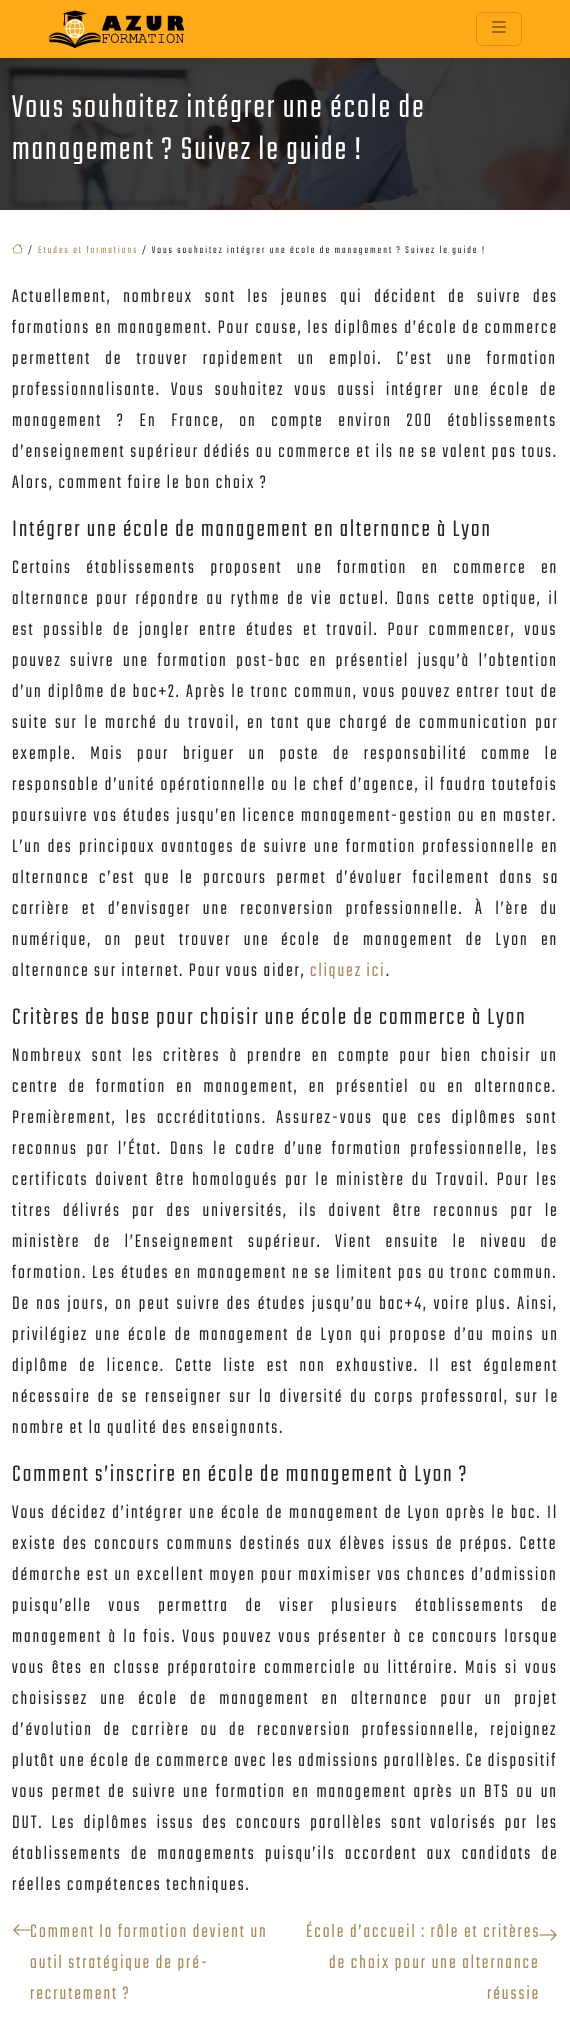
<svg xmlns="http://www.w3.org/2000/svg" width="570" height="2039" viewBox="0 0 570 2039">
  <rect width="100%" height="100%" fill="#fff"/>
  <path d="M0 0h570v58H0z" fill="#ffaa17"/>
  <image x="48" y="10" width="137" height="39" href="img/1.png"/>
  <rect x="476.5" y="12.5" width="45" height="33" rx="5.5" fill="none" stroke="#d99114"/>
  <image x="492" y="21" width="14" height="12" href="img/2.png"/>
  <image x="0" y="58" width="570" height="152" href="img/3.png"/>
  <image x="12" y="243" width="11" height="11" href="img/4.png"/>
  <image x="13" y="1924" width="18" height="12" href="img/5.png"/>
  <image x="539" y="1929" width="18" height="12" href="img/6.png"/>
  <g font-family="Teko" font-size="35" font-weight="300" letter-spacing="2" fill="#fff">
    <text x="12" y="117">Vous souhaitez intégrer une école de</text>
    <text x="12" y="159">management ? Suivez le guide !</text>
  </g>
  <text x="28" y="253" font-family="Teko" font-size="11" font-weight="300" letter-spacing="2" fill="#222429">/</text>
  <text x="38" y="253" font-family="Teko" font-size="11" font-weight="300" letter-spacing="2" fill="#a88b58">Etudes et formations</text>
  <text x="142" y="253" font-family="Teko" font-size="11" font-weight="300" letter-spacing="2" fill="#222429">/ Vous souhaitez intégrer une école de management ? Suivez le guide !</text>
  <g font-family="Teko" font-size="20" font-weight="300" letter-spacing="2" fill="#222429">
    <text x="12" y="302" word-spacing="7">Actuellement, nombreux sont les jeunes qui décident de suivre des</text>
    <text x="12" y="333" word-spacing="0.5">formations en management. Pour cause, les diplômes d’école de commerce</text>
    <text x="12" y="364" word-spacing="9.5">permettent de trouver rapidement un emploi. C’est une formation</text>
    <text x="12" y="395" word-spacing="5.5">professionnalisante. Vous souhaitez vous aussi intégrer une école de</text>
    <text x="12" y="426" word-spacing="10">management ? En France, on compte environ 200 établissements</text>
    <text x="12" y="457" word-spacing="0.25">d’enseignement supérieur dédiés au commerce et ils ne se valent pas tous.</text>
    <text x="12" y="488">Alors, comment faire le bon choix ?</text>
  </g>
  <text x="12" y="536" font-family="Teko" font-size="25" font-weight="300" letter-spacing="2" fill="#222429">Intégrer une école de management en alternance à Lyon</text>
  <g font-family="Teko" font-size="20" font-weight="300" letter-spacing="2" fill="#222429">
    <text x="12" y="573" word-spacing="9.75">Certains établissements proposent une formation en commerce en</text>
    <text x="12" y="604" word-spacing="2.25">alternance pour répondre au rythme de vie actuel. Dans cette optique, il</text>
    <text x="12" y="635" word-spacing="4.25">est possible de jongler entre études et travail. Pour commencer, vous</text>
    <text x="12" y="666" word-spacing="4">pouvez suivre une formation post-bac en présentiel jusqu’à l’obtention</text>
    <text x="12" y="697" word-spacing="0.75">d’un diplôme de bac+2. Après le tronc commun, vous pouvez entrer tout de</text>
    <text x="12" y="728" word-spacing="2.1">suite sur le marché du travail, en tant que chargé de communication par</text>
    <text x="12" y="759" word-spacing="9">exemple. Mais pour briguer un poste de responsabilité comme le</text>
    <text x="12" y="790" word-spacing="0.6">responsable d’unité opérationnelle ou le chef d’agence, il faudra toutefois</text>
    <text x="12" y="821" word-spacing="0.5">poursuivre vos études jusqu’en licence management-gestion ou en master.</text>
    <text x="12" y="852" word-spacing="1.5">L’un des principaux avantages de suivre une formation professionnelle en</text>
    <text x="12" y="883" word-spacing="5">alternance c’est que le parcours permet d’évoluer facilement dans sa</text>
    <text x="12" y="914" word-spacing="7">carrière et d’envisager une reconversion professionnelle. À l’ère du</text>
    <text x="12" y="945" word-spacing="8">numérique, on peut trouver une</text>
    <text x="281" y="945" word-spacing="8">école de management de Lyon</text>
    <text x="541" y="945">en</text>
    <text x="12" y="976">alternance sur internet. Pour vous aider,</text>
  </g>
  <text x="310" y="976" font-family="Teko" font-size="20" font-weight="300" letter-spacing="2" fill="#a88b58">cliquez ici</text>
  <text x="386" y="976" font-family="Teko" font-size="20" font-weight="300" letter-spacing="2" fill="#222429">.</text>
  <text x="12" y="1024" font-family="Teko" font-size="25" font-weight="300" letter-spacing="2" fill="#222429">Critères de base pour choisir une école de commerce à Lyon</text>
  <g font-family="Teko" font-size="20" font-weight="300" letter-spacing="2" fill="#222429">
    <text x="12" y="1061" word-spacing="4.5">Nombreux sont les critères à prendre en compte pour bien choisir un</text>
    <text x="12" y="1092" word-spacing="5.5">centre de formation en management, en présentiel ou en alternance.</text>
    <text x="12" y="1123" word-spacing="4.75">Premièrement, les accréditations. Assurez-vous que ces diplômes sont</text>
    <text x="12" y="1154" word-spacing="3.75">reconnus par l’État. Dans le cadre d’une formation professionnelle, les</text>
    <text x="12" y="1185" word-spacing="2.4">certificats doivent être homologués par le ministère du Travail. Pour les</text>
    <text x="12" y="1216" word-spacing="6.5">titres délivrés par des universités, ils doivent être reconnus par le</text>
    <text x="12" y="1247" word-spacing="9">ministère de l’Enseignement supérieur. Vient ensuite le niveau de</text>
    <text x="12" y="1278" word-spacing="0.5">formation. Les études en management ne se limitent pas au tronc commun.</text>
    <text x="12" y="1309" word-spacing="1.4">De nos jours, on peut suivre des études jusqu’au bac+4, voire plus. Ainsi,</text>
    <text x="12" y="1340" word-spacing="2.5">privilégiez une</text>
    <text x="128" y="1340" word-spacing="2.5">école de management de Lyon</text>
    <text x="360" y="1340" word-spacing="2.5">qui propose d’au moins un</text>
    <text x="12" y="1371" word-spacing="5.75">diplôme de licence. Cette liste est non exhaustive. Il est également</text>
    <text x="12" y="1402" word-spacing="2.25">nécessaire de se renseigner sur la diversité du corps professoral, sur le</text>
    <text x="12" y="1433">nombre et la qualité des enseignants.</text>
  </g>
  <text x="12" y="1481" font-family="Teko" font-size="25" font-weight="300" letter-spacing="2" fill="#222429">Comment s’inscrire en école de management à Lyon ?</text>
  <g font-family="Teko" font-size="20" font-weight="300" letter-spacing="2" fill="#222429">
    <text x="12" y="1518" word-spacing="1">Vous décidez d’intégrer une</text>
    <text x="221" y="1518" word-spacing="1">école de management de Lyon</text>
    <text x="446" y="1518" word-spacing="1">après le bac. Il</text>
    <text x="12" y="1549" word-spacing="1.75">existe des concours communs destinés aux élèves issus de prépas. Cette</text>
    <text x="12" y="1580" word-spacing="0.5">démarche est un excellent moyen pour maximiser vos chances d’admission</text>
    <text x="12" y="1611" word-spacing="12">puisqu’elle vous permettra de viser plusieurs établissements de</text>
    <text x="12" y="1642" word-spacing="1.75">management à la fois. Vous pouvez vous présenter à ce concours lorsque</text>
    <text x="12" y="1673" word-spacing="2.25">vous êtes en classe préparatoire commerciale ou littéraire. Mais si vous</text>
    <text x="12" y="1704" word-spacing="7.5">choisissez une école de management en alternance pour un projet</text>
    <text x="12" y="1735" word-spacing="6.25">d’évolution de carrière ou de reconversion professionnelle, rejoignez</text>
    <text x="12" y="1766">plutôt une école de commerce avec les admissions parallèles. Ce dispositif</text>
    <text x="12" y="1797" word-spacing="2.1">vous permet de suivre une formation en management après un BTS ou un</text>
    <text x="12" y="1828" word-spacing="3.6">DUT. Les diplômes issus des concours parallèles sont valorisés par les</text>
    <text x="12" y="1859" word-spacing="4.75">établissements de managements puisqu’ils accordent aux candidats de</text>
    <text x="12" y="1890">réelles compétences techniques.</text>
  </g>
  <g font-family="Teko" font-size="20" font-weight="300" letter-spacing="2" fill="#a88b58">
    <text x="30" y="1937">Comment la formation devient un</text>
    <text x="30" y="1968">outil stratégique de pré-</text>
    <text x="30" y="1999">recrutement ?</text>
    <text x="306" y="1937">École d’accueil : rôle et critères</text>
    <text x="329" y="1968">de choix pour une alternance</text>
    <text x="487" y="1999">réussie</text>
  </g>
</svg>
